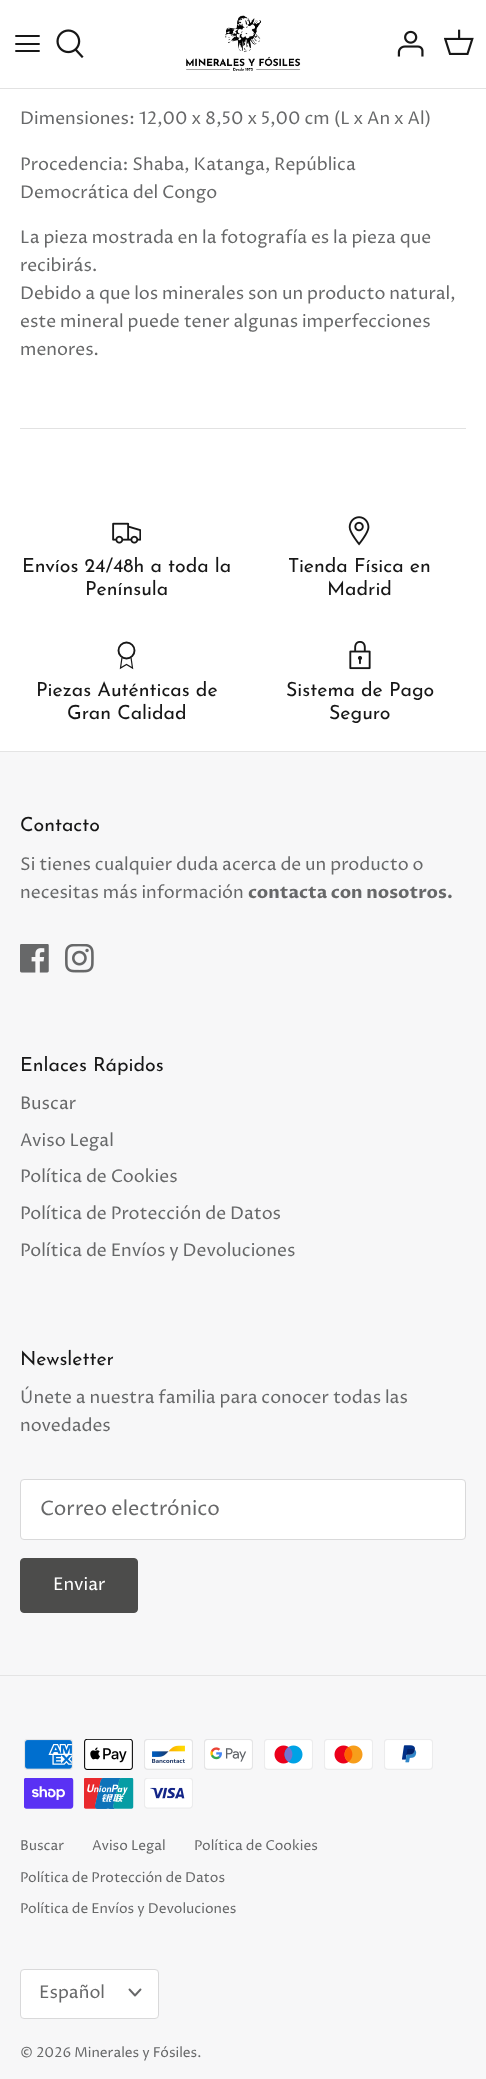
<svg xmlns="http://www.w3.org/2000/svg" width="486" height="2079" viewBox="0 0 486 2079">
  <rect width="100%" height="100%" fill="#fff"/>
  <path d="M0 88h486v1H0z" fill="#e2e2e2"/>
  <path d="M16 44H39M16 36H39M16 51H39" fill="none" stroke="#171717" stroke-width="1.9" stroke-linecap="round" stroke-linejoin="round"/>
  <image x="56" y="29" width="28" height="29" href="img/1.png"/>
  <image x="186" y="15" width="115" height="56" href="img/2.png"/>
  <image x="397" y="30" width="27" height="27" href="img/3.png"/>
  <image x="444" y="29" width="30" height="26" href="img/4.png"/>
  <path d="M20 428h446v1H20z" fill="#e2e2e2"/>
  <path d="M0 752h486v1327H0z" fill="#f7f7f8"/>
  <image x="112" y="522" width="29" height="22" href="img/5.png"/>
  <image x="348" y="516" width="22" height="30" href="img/6.png"/>
  <circle cx="126.5" cy="650.5" r="8" fill="none" stroke="#171717" stroke-width="1.9"/>
  <path d="M122 657.5L120.5 668L126.5 664.5L132.5 668L131 657.5" fill="none" stroke="#171717" stroke-width="1.2"/>
  <image x="349" y="641" width="22" height="29" href="img/7.png"/>
  <path d="M0 751h486v1H0z" fill="#e4e4e4"/>
  <image x="20" y="944" width="29" height="29" href="img/8.png"/>
  <image x="65" y="944" width="29" height="29" href="img/9.png"/>
  <rect x="20.5" y="1479.5" width="445" height="60" rx="3.5" fill="#fff" stroke="#d9d9da"/>
  <rect x="20.5" y="1558.5" width="117" height="54" rx="3.5" fill="#4c4c4b" stroke="#4c4c4b"/>
  <path d="M0 1675h486v1H0z" fill="#e4e4e4"/>
  <image x="24" y="1739" width="49" height="31" href="img/10.png"/>
  <image x="84" y="1739" width="49" height="31" href="img/11.png"/>
  <image x="144" y="1739" width="49" height="31" href="img/12.png"/>
  <image x="204" y="1739" width="49" height="31" href="img/13.png"/>
  <image x="264" y="1739" width="49" height="31" href="img/14.png"/>
  <image x="324" y="1739" width="49" height="31" href="img/15.png"/>
  <image x="384" y="1739" width="49" height="31" href="img/16.png"/>
  <image x="24" y="1778" width="50" height="31" href="img/17.png"/>
  <image x="84" y="1778" width="50" height="31" href="img/18.png"/>
  <image x="144" y="1778" width="49" height="31" href="img/19.png"/>
  <rect x="20.5" y="1969.5" width="138" height="49" rx="3.5" fill="#fff" stroke="#d9d9da"/>
  <path d="M129.5 1989.5L135 1995.5L140.5 1989.5" fill="none" stroke="#676869" stroke-width="1.9" stroke-linecap="round" stroke-linejoin="round"/>
  <g font-family="Proza Libre" font-size="17.5" fill="#676869">
    <text x="20" y="124">Dimensiones: 12,00 x 8,50 x 5,00 cm (L x An x Al)</text>
    <text x="20" y="170">Procedencia: Shaba, Katanga, República</text>
    <text x="20" y="198">Democrática del Congo</text>
    <text x="20" y="243">La pieza mostrada en la fotografía es la pieza que</text>
    <text x="20" y="271">recibirás.</text>
    <text x="20" y="299">Debido a que los minerales son un producto natural,</text>
    <text x="20" y="327">este mineral puede tener algunas imperfecciones</text>
    <text x="20" y="355">menores.</text>
  </g>
  <g font-family="Josefin Sans" font-size="19.5" fill="#171717">
    <text x="22" y="572">Envíos 24/48h a toda la</text>
    <text x="85" y="595">Península</text>
    <text x="288" y="572">Tienda Física en</text>
    <text x="327" y="595">Madrid</text>
    <text x="36" y="696">Piezas Auténticas de</text>
    <text x="67" y="719">Gran Calidad</text>
    <text x="286" y="696">Sistema de Pago</text>
    <text x="329" y="719">Seguro</text>
    <text x="20" y="831">Contacto</text>
  </g>
  <g font-family="Proza Libre" font-size="17.5" fill="#676869">
    <text x="20" y="870">Si tienes cualquier duda acerca de un producto o</text>
    <text x="20" y="898">necesitas más información</text>
  </g>
  <text x="248" y="898" font-family="Proza Libre" font-size="17.5" font-weight="bold" fill="#676869">contacta con nosotros.</text>
  <text x="20" y="1071" font-family="Josefin Sans" font-size="19.5" fill="#171717">Enlaces Rápidos</text>
  <g font-family="Proza Libre" font-size="17.5" fill="#676869">
    <text x="20" y="1109">Buscar</text>
    <text x="20" y="1146">Aviso Legal</text>
    <text x="20" y="1182">Política de Cookies</text>
    <text x="20" y="1219">Política de Protección de Datos</text>
    <text x="20" y="1256">Política de Envíos y Devoluciones</text>
  </g>
  <text x="20" y="1365" font-family="Josefin Sans" font-size="19.5" fill="#171717">Newsletter</text>
  <g font-family="Proza Libre" font-size="17.5" fill="#676869">
    <text x="20" y="1403">Únete a nuestra familia para conocer todas las</text>
    <text x="20" y="1431">novedades</text>
  </g>
  <text x="40" y="1515" font-family="Proza Libre" font-size="20" fill="#676869">Correo electrónico</text>
  <text x="53" y="1590" font-family="Proza Libre" font-size="17.5" fill="#fff">Enviar</text>
  <g font-family="Proza Libre" font-size="13.75" fill="#676869">
    <text x="20" y="1850">Buscar</text>
    <text x="92" y="1850">Aviso Legal</text>
    <text x="194" y="1850">Política de Cookies</text>
    <text x="20" y="1882">Política de Protección de Datos</text>
    <text x="20" y="1913">Política de Envíos y Devoluciones</text>
  </g>
  <text x="39" y="1998" font-family="Proza Libre" font-size="17.5" fill="#676869">Español</text>
  <text x="20" y="2057" font-family="Proza Libre" font-size="13.75" fill="#676869">© 2026 Minerales y Fósiles.</text>
</svg>
